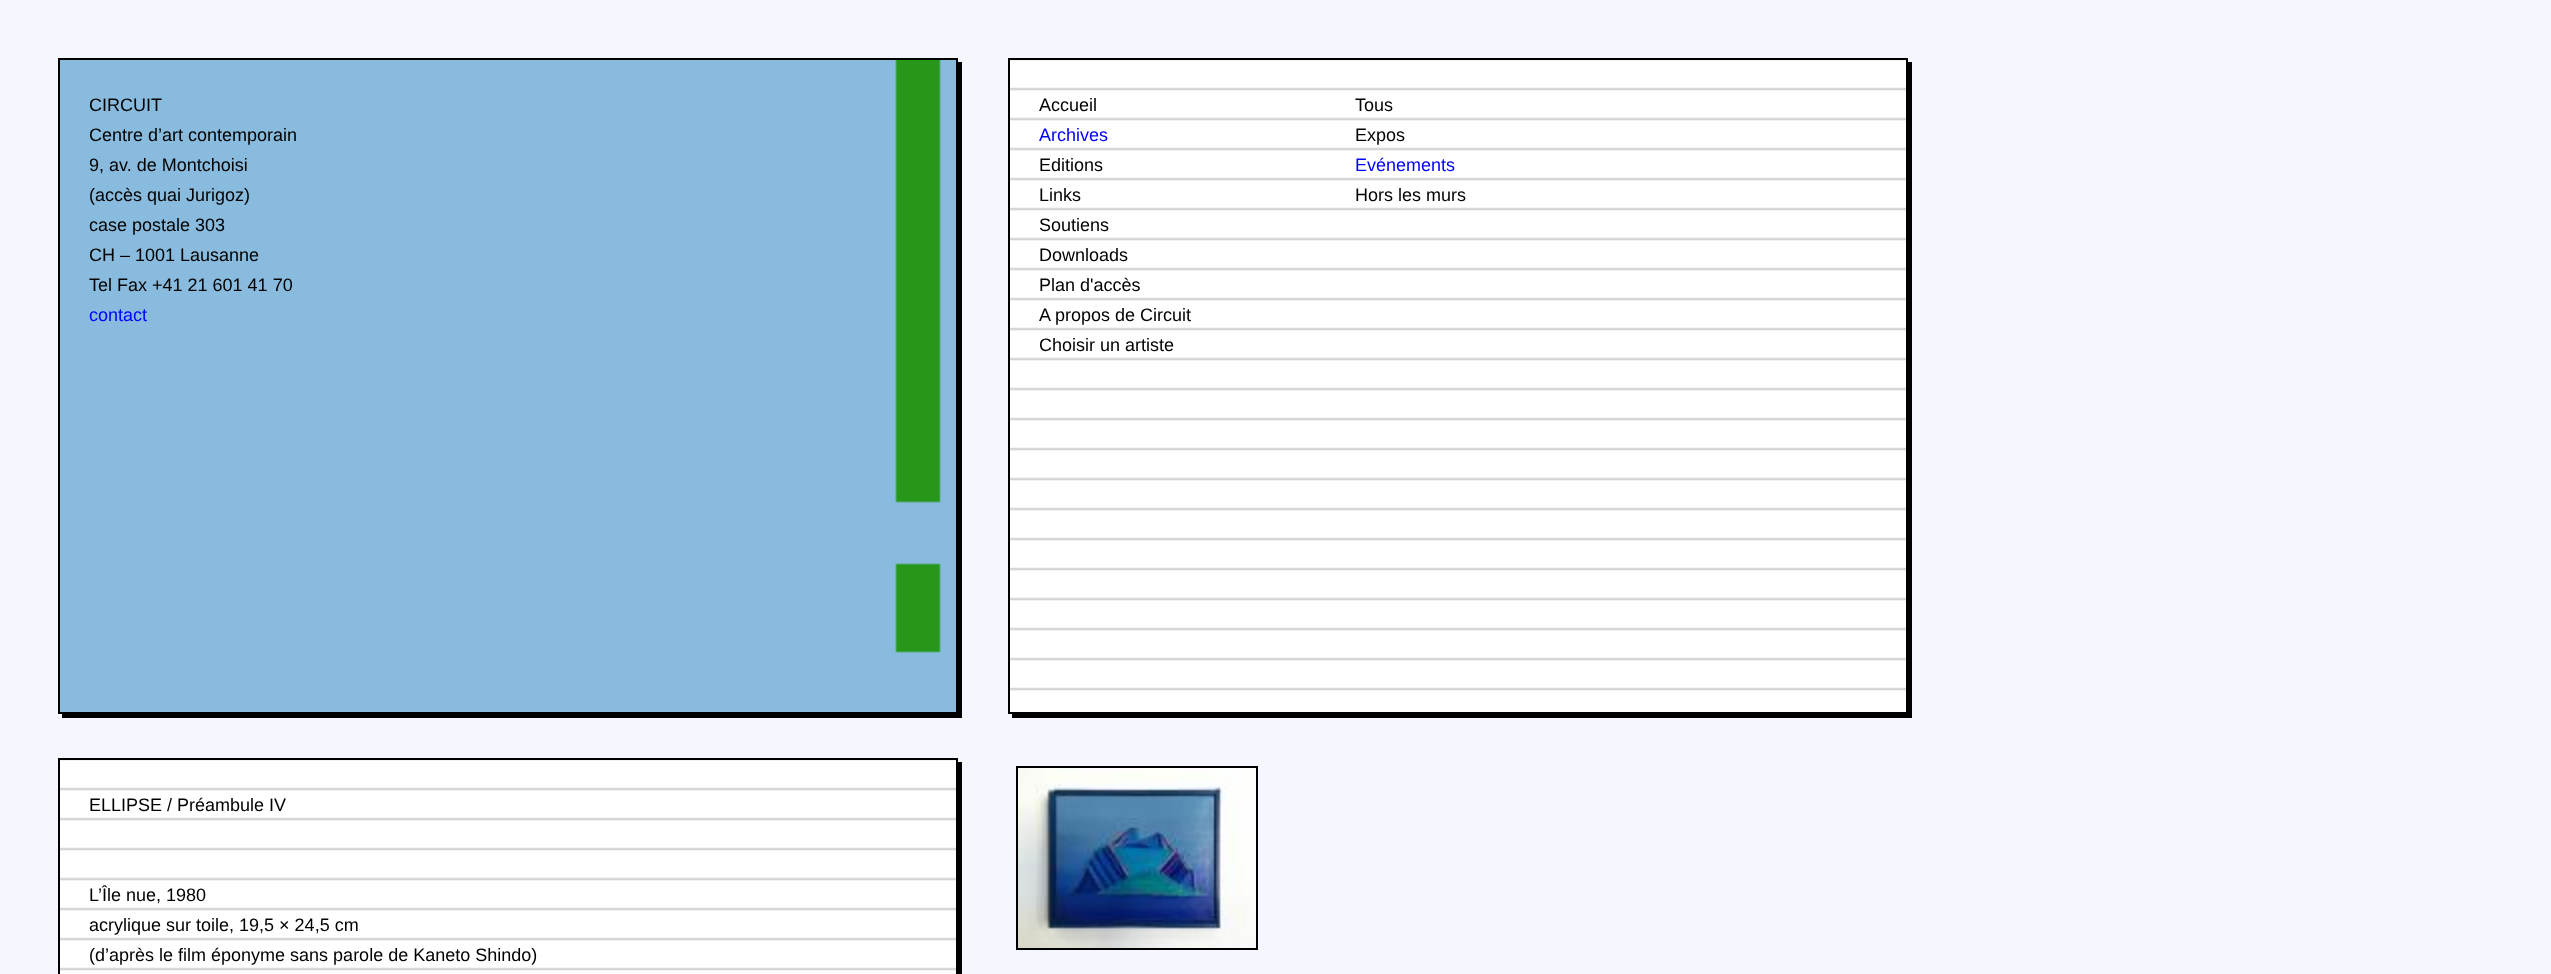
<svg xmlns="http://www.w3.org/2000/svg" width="2551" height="974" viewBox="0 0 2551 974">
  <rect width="100%" height="100%" fill="#f4f7ff"/>
  <path d="M62 62h900v656H62z" fill="#000"/>
  <path d="M59 59h898v654H59z" fill="#8bd" stroke="#000" stroke-width="2"/>
  <image x="895" y="60" width="46" height="593" href="img/1.png"/>
  <path d="M1012 62h900v656H1012z" fill="#000"/>
  <path d="M1010 691h896v21H1010z" fill="#fff"/>
  <image x="1010" y="60" width="896" height="631" href="img/2.png"/>
  <path d="M1009 59h898v654H1009z" fill="none" stroke="#000" stroke-width="2"/>
  <path d="M958 762h4v212H958z" fill="#000"/>
  <path d="M60 971h896v3H60z" fill="#fff"/>
  <image x="60" y="760" width="896" height="211" href="img/3.png"/>
  <path d="M59 759h898v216H59z" fill="none" stroke="#000" stroke-width="2"/>
  <path d="M1017 767h240v182H1017z" fill="none" stroke="#000" stroke-width="2"/>
  <image x="1018" y="768" width="238" height="180" href="img/4.png"/>
  <g font-family="Liberation Sans" font-size="18" fill="#000">
    <text x="89" y="111">CIRCUIT</text>
    <text x="89" y="141">Centre d’art contemporain</text>
    <text x="89" y="171">9, av. de Montchoisi</text>
    <text x="89" y="201">(accès quai Jurigoz)</text>
    <text x="89" y="231">case postale 303</text>
    <text x="89" y="261">CH – 1001 Lausanne</text>
    <text x="89" y="291">Tel Fax +41 21 601 41 70</text>
  </g>
  <text x="89" y="321" font-family="Liberation Sans" font-size="18" fill="#00f">contact</text>
  <text x="1039" y="111" font-family="Liberation Sans" font-size="18" fill="#000">Accueil</text>
  <text x="1039" y="141" font-family="Liberation Sans" font-size="18" fill="#00f">Archives</text>
  <g font-family="Liberation Sans" font-size="18" fill="#000">
    <text x="1039" y="171">Editions</text>
    <text x="1039" y="201">Links</text>
    <text x="1039" y="231">Soutiens</text>
    <text x="1039" y="261">Downloads</text>
    <text x="1039" y="291">Plan d'accès</text>
    <text x="1039" y="321">A propos de Circuit</text>
    <text x="1039" y="351">Choisir un artiste</text>
    <text x="1355" y="111">Tous</text>
    <text x="1355" y="141">Expos</text>
  </g>
  <text x="1355" y="171" font-family="Liberation Sans" font-size="18" fill="#00f">Evénements</text>
  <g font-family="Liberation Sans" font-size="18" fill="#000">
    <text x="1355" y="201">Hors les murs</text>
    <text x="89" y="811">ELLIPSE / Préambule IV</text>
    <text x="89" y="901">L’Île nue, 1980</text>
    <text x="89" y="931">acrylique sur toile, 19,5 × 24,5 cm</text>
    <text x="89" y="961">(d’après le film éponyme sans parole de Kaneto Shindo)</text>
  </g>
</svg>
